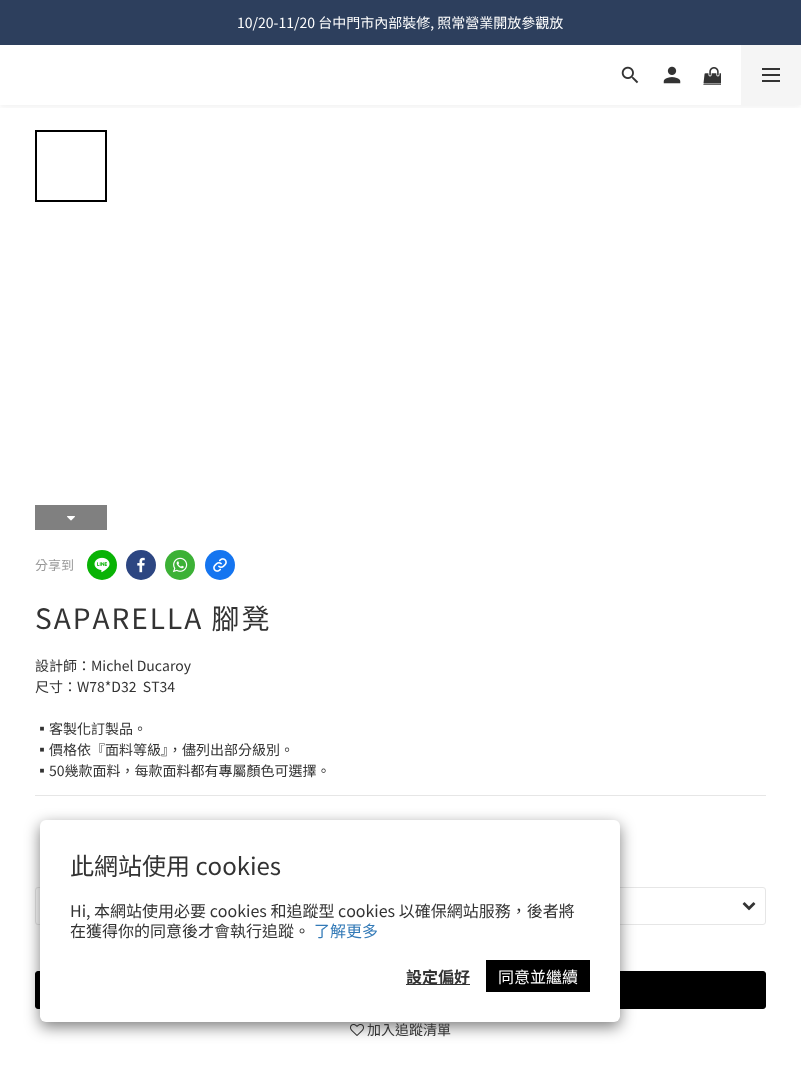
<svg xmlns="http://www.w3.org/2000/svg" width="801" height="1082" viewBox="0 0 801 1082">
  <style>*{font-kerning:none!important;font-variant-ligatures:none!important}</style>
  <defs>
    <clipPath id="clip1"><path d="M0 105h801v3H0z"/></clipPath>
  </defs>
  <rect width="100%" height="100%" fill="#fff"/>
  <path d="M0 0h801v45H0z" fill="#2d3f5d"/>
  <g clip-path="url(#clip1)">
    <path d="M0 47h801v60H0z" fill="#0000000f" filter="blur(3px)"/>
  </g>
  <image x="621" y="66" width="18" height="18" href="img/1.png"/>
  <image x="663" y="66" width="18" height="18" href="img/2.png"/>
  <image x="703" y="67" width="18" height="18" href="img/3.png"/>
  <path d="M741 45h60v60H741z" fill="#f5f5f5"/>
  <path d="M762 74h18v2H762z" fill="#333"/>
  <path d="M762 68h18v2H762z" fill="#333"/>
  <path d="M762 80h18v2H762z" fill="#333"/>
  <path d="M36 131h70v70H36z" fill="none" stroke="#000" stroke-width="2"/>
  <path d="M35 505h72v25H35z" fill="#808080"/>
  <image x="67" y="516" width="8" height="5" href="img/4.png"/>
  <circle cx="102" cy="565" r="15" fill="#09b305"/>
  <image x="94" y="557" width="16" height="16" href="img/5.png"/>
  <circle cx="141" cy="565" r="15" fill="#2d4682"/>
  <image x="137" y="557" width="8" height="16" href="img/6.png"/>
  <circle cx="180" cy="565" r="15" fill="#3cb136"/>
  <image x="172" y="557" width="16" height="16" href="img/7.png"/>
  <circle cx="220" cy="565" r="15" fill="#1575f0"/>
  <image x="213" y="558" width="14" height="14" href="img/8.png"/>
  <path d="M35 795h731v1H35z" fill="#e6e6e6"/>
  <image x="742" y="902" width="14" height="9" href="img/9.png"/>
  <rect x="35.5" y="887.5" width="730" height="37" rx="2.5" fill="none" stroke="#e6e6e6"/>
  <rect x="35.5" y="971.5" width="730" height="37" rx="2.5" fill="#000" stroke="#000"/>
  <image x="350" y="1024" width="14" height="12" href="img/10.png"/>
  <rect x="40" y="825" width="580" height="202" rx="6" fill="#00000080" filter="blur(7.5px)"/>
  <rect x="40" y="820" width="580" height="202" rx="6" fill="#fff"/>
  <path d="M406 984h64v1H406z" fill="#333"/>
  <path d="M486 960h104v32H486z" fill="#000"/>
  <text x="237" y="28" font-family="Noto Sans TC" font-size="14" fill="#fff">10/20-11/20 台中門市內部裝修, 照常營業開放參觀放</text>
  <text x="35" y="570" font-family="Noto Sans TC" font-size="13" fill="#999">分享到</text>
  <text x="35" y="629" font-family="Noto Sans TC" font-size="28" letter-spacing="2" fill="#333">SAPARELLA 腳凳</text>
  <g font-family="Noto Sans TC" font-size="14" fill="#333">
    <text x="35" y="671">設計師：Michel Ducaroy</text>
    <text x="35" y="692" xml:space="preserve">尺寸：W78*D32  ST34</text>
    <text x="35" y="734">▪客製化訂製品。</text>
    <text x="35" y="755">▪價格依『面料等級』，儘列出部分級別。</text>
    <text x="35" y="776">▪50幾款面料，每款面料都有專屬顏色可選擇。</text>
    <text x="367" y="1035">加入追蹤清單</text>
  </g>
  <text x="70" y="875" font-family="Noto Sans TC" font-size="24" fill="#333">此網站使用 cookies</text>
  <g font-family="Noto Sans TC" font-size="16" fill="#333">
    <text x="70" y="917">Hi, 本網站使用必要 cookies 和追蹤型 cookies 以確保網站服務，後者將</text>
    <text x="70" y="937">在獲得你的同意後才會執行追蹤。</text>
  </g>
  <text x="314" y="937" font-family="Noto Sans TC" font-size="16" fill="#337ab7">了解更多</text>
  <text x="406" y="983" font-family="Noto Sans TC" font-size="16" font-weight="bold" fill="#333">設定偏好</text>
  <text x="498" y="983" font-family="Noto Sans TC" font-size="16" fill="#fff">同意並繼續</text>
</svg>
